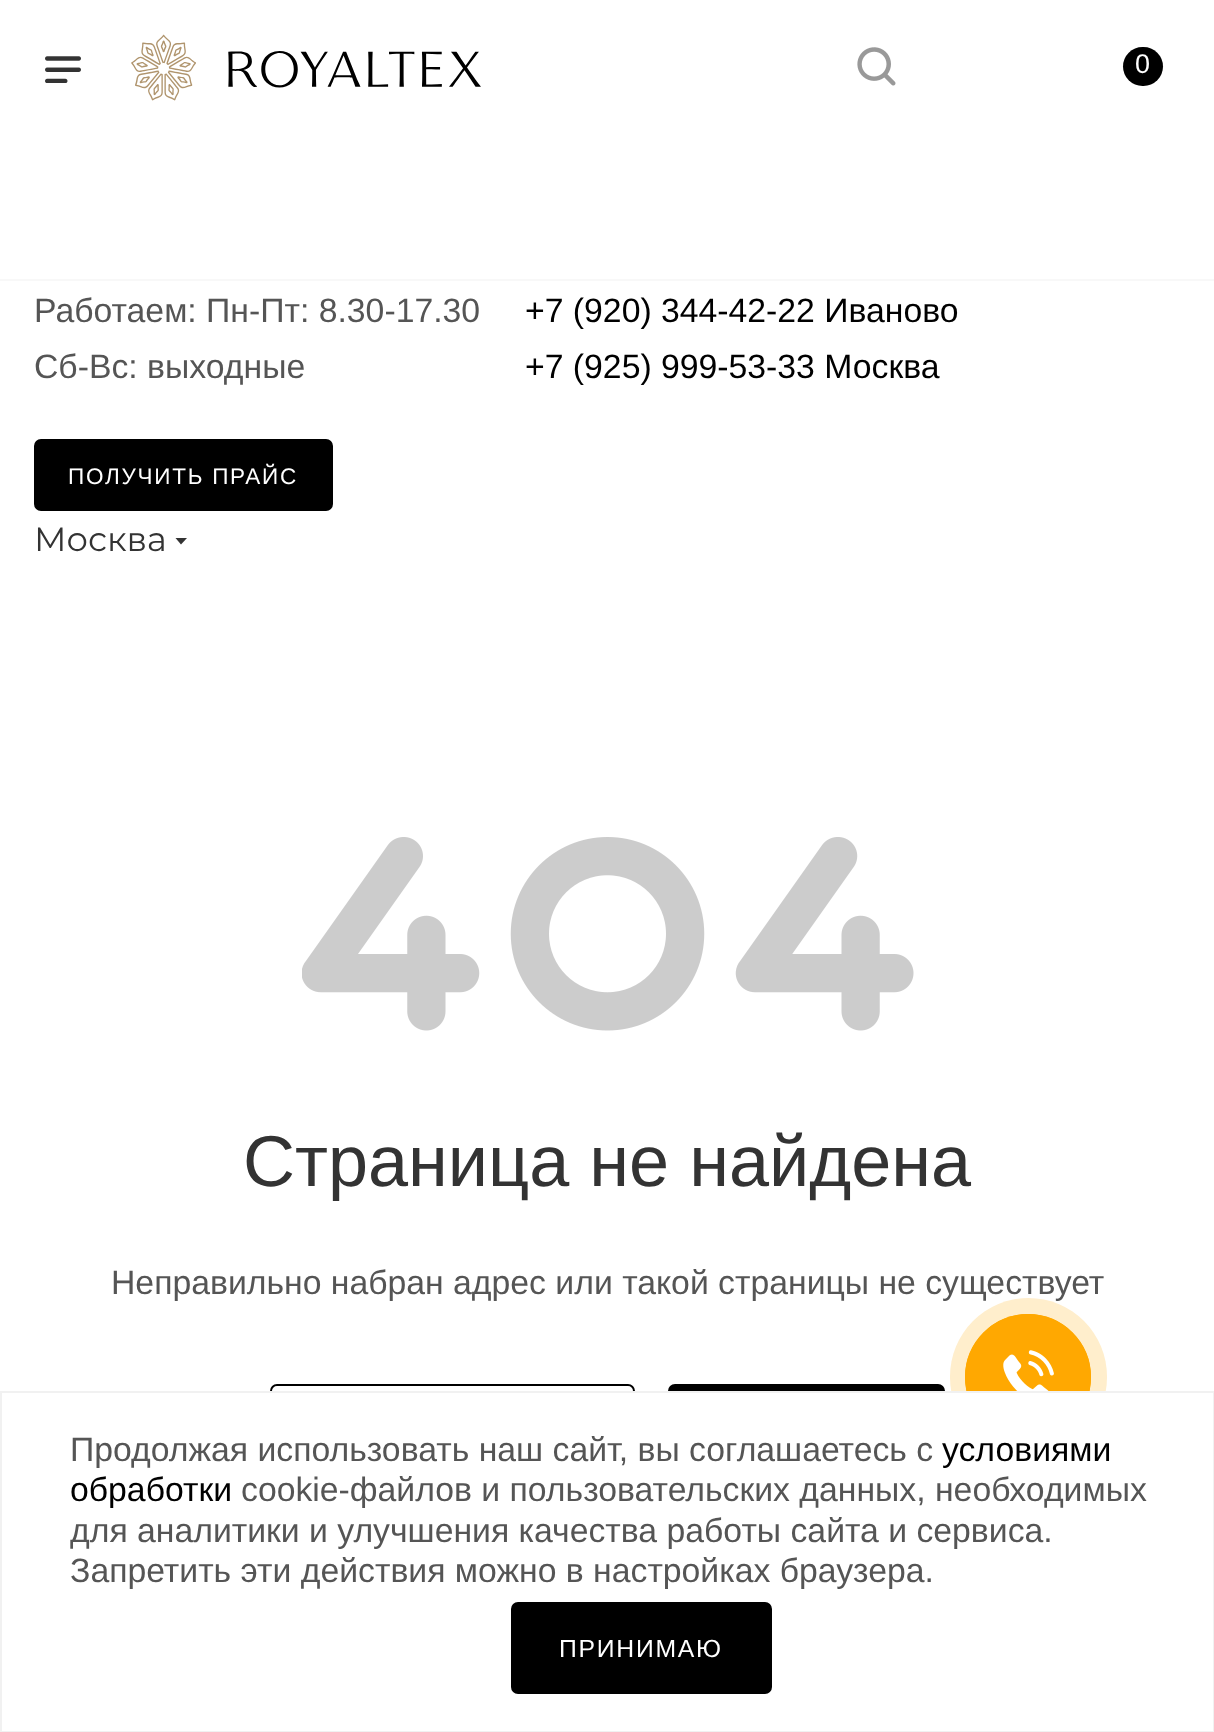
<svg xmlns="http://www.w3.org/2000/svg" width="1214" height="1732" viewBox="0 0 1214 1732">
  <rect width="100%" height="100%" fill="#fff"/>
  <path d="M0 279h1214v2H0z" fill="#f8f8f8"/>
  <image x="45" y="56" width="36" height="27" href="img/1.png"/>
  <image x="131" y="34" width="350" height="67" href="img/2.png"/>
  <image x="857" y="47" width="39" height="39" href="img/3.png"/>
  <rect x="1123" y="47" width="40" height="39" rx="19.5" fill="#000"/>
  <rect x="35" y="440" width="297" height="70" rx="6" fill="#000" stroke="#000" stroke-width="2"/>
  <path d="M175.5 538H187L181 544.5Z" fill="#333" fill-rule="evenodd"/>
  <image x="302" y="837" width="612" height="194" href="img/4.png"/>
  <rect x="271" y="1385" width="363" height="90" rx="6" fill="none" stroke="#000" stroke-width="2"/>
  <rect x="669" y="1385" width="275" height="90" rx="6" fill="#000" stroke="#000" stroke-width="2"/>
  <text x="1135" y="73" font-family="Liberation Sans" font-size="27" fill="#fff">0</text>
  <g font-family="Liberation Sans" font-size="33.75" fill="#555">
    <text x="34" y="322">Работаем: Пн-Пт: 8.30-17.30</text>
    <text x="34" y="378">Сб-Вс: выходные</text>
  </g>
  <g font-family="Liberation Sans" font-size="33.75" fill="#000">
    <text x="525" y="322">+7 (920) 344-42-22 Иваново</text>
    <text x="525" y="378">+7 (925) 999-53-33 Москва</text>
  </g>
  <text x="68" y="484" font-family="Liberation Sans" font-size="22.5" letter-spacing="1.75" fill="#fff">ПОЛУЧИТЬ ПРАЙС</text>
  <text x="34" y="551" font-family="Montserrat" font-size="33.75" fill="#333">Москва</text>
  <text x="243" y="1186" font-family="Liberation Sans" font-size="72" fill="#333">Страница не найдена</text>
  <text x="111" y="1294" font-family="Liberation Sans" font-size="33.75" fill="#555">Неправильно набран адрес или такой страницы не существует</text>
  <rect x="950" y="1298" width="157" height="158" rx="78.5" fill="#fec"/>
  <circle cx="1028" cy="1377" r="62" fill="none" stroke="#ffa801" stroke-width="2"/>
  <circle cx="1028" cy="1377" r="63" fill="#ffa801"/>
  <image x="1003" y="1350" width="51" height="41" href="img/5.png"/>
  <path d="M270 1393h836v83H270z" fill="#fff"/>
  <path d="M1 1392h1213v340H1z" fill="none" stroke="#f1f1f1" stroke-width="2"/>
  <text x="70" y="1461" font-family="Liberation Sans" font-size="33.75" fill="#555">Продолжая использовать наш сайт, вы соглашаетесь с</text>
  <g font-family="Liberation Sans" font-size="33.75" fill="#000">
    <text x="942" y="1461">условиями</text>
    <text x="70" y="1501">обработки</text>
  </g>
  <g font-family="Liberation Sans" font-size="33.75" fill="#555">
    <text x="241" y="1501">cookie-файлов и пользовательских данных, необходимых</text>
    <text x="70" y="1542">для аналитики и улучшения качества работы сайта и сервиса.</text>
    <text x="70" y="1582">Запретить эти действия можно в настройках браузера.</text>
  </g>
  <rect x="512" y="1603" width="259" height="90" rx="6" fill="#000" stroke="#000" stroke-width="2"/>
  <text x="559" y="1657" font-family="Liberation Sans" font-size="24.75" letter-spacing="1.75" fill="#fff">ПРИНИМАЮ</text>
</svg>
